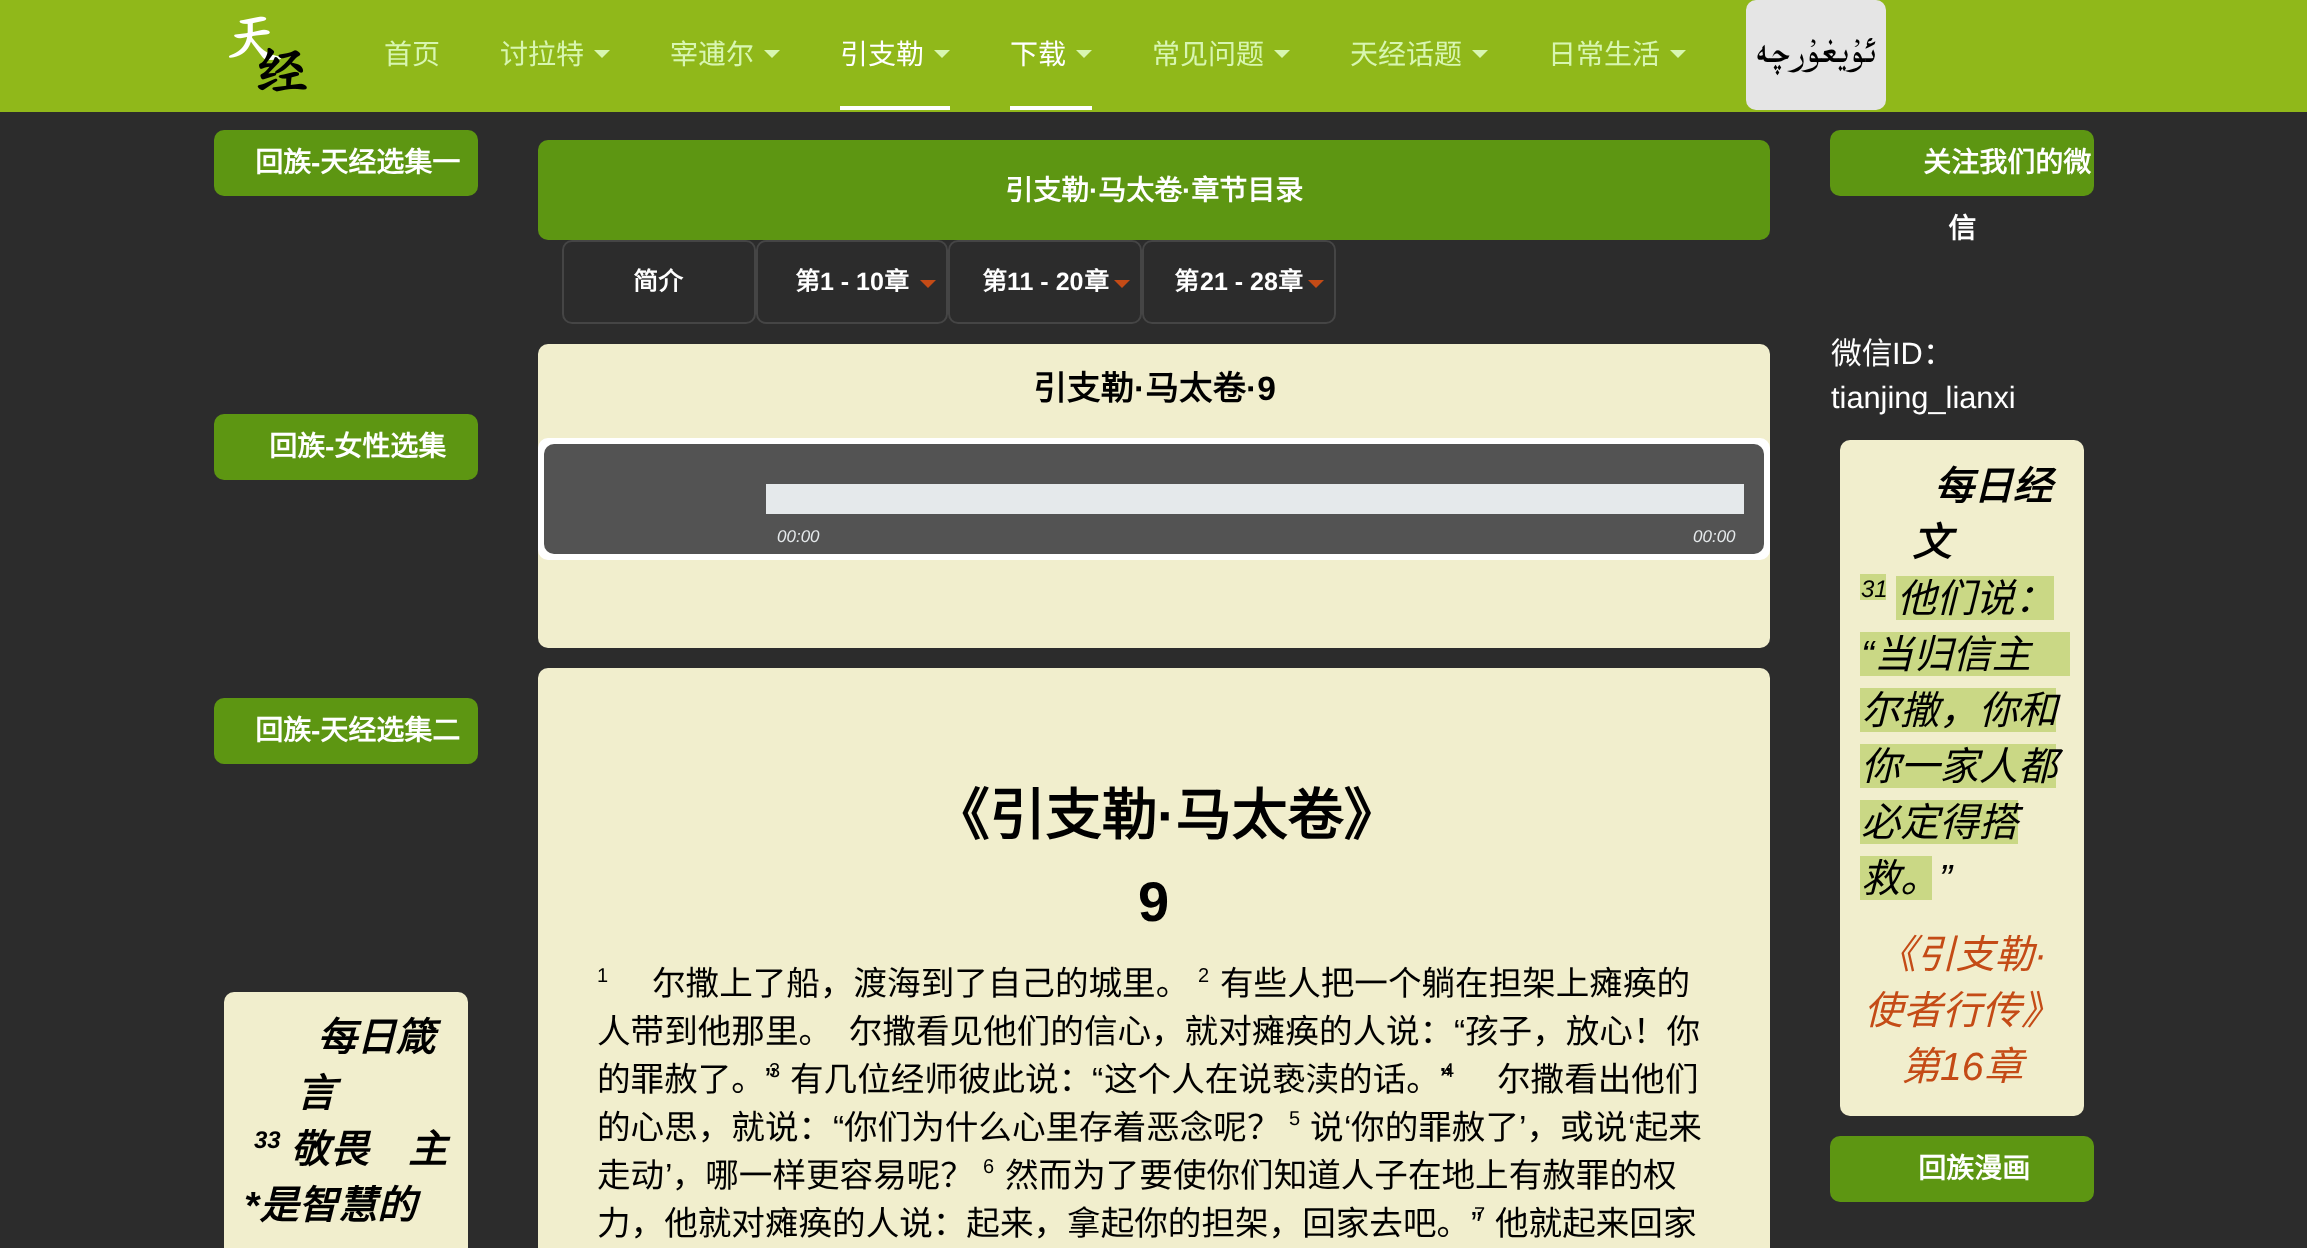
<svg xmlns="http://www.w3.org/2000/svg" width="2307" height="1248" viewBox="0 0 2307 1248">
  <rect width="100%" height="100%" fill="#2c2c2c"/>
  <path d="M0 0h2307v112H0z" fill="#90b81a"/>
  <image x="229" y="16" width="78" height="76" href="img/1.png"/>
  <path d="M594 50H610L602 58Z" fill="#d8f6b1"/>
  <path d="M764 50H780L772 58Z" fill="#d8f6b1"/>
  <path d="M840 106h110v4H840z" fill="#fff"/>
  <path d="M934 50H950L942 58Z" fill="#d8f6b1"/>
  <path d="M1010 106h82v4H1010z" fill="#fff"/>
  <path d="M1076 50H1092L1084 58Z" fill="#d8f6b1"/>
  <path d="M1274 50H1290L1282 58Z" fill="#d8f6b1"/>
  <path d="M1472 50H1488L1480 58Z" fill="#d8f6b1"/>
  <path d="M1670 50H1686L1678 58Z" fill="#d8f6b1"/>
  <rect x="1751" y="5" width="130" height="100" rx="5" fill="#e5e5e5" stroke="#e5e5e5" stroke-width="10"/>
  <rect x="214" y="130" width="264" height="66" rx="10" fill="#5d9612"/>
  <rect x="214" y="414" width="264" height="66" rx="10" fill="#5d9612"/>
  <rect x="214" y="698" width="264" height="66" rx="10" fill="#5d9612"/>
  <rect x="224" y="992" width="244" height="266" rx="10" fill="#f1eecd"/>
  <rect x="538" y="140" width="1232" height="100" rx="10" fill="#5d9612"/>
  <rect x="563" y="241" width="192" height="82" rx="9" fill="none" stroke="#454545" stroke-width="2"/>
  <rect x="757" y="241" width="190" height="82" rx="9" fill="none" stroke="#454545" stroke-width="2"/>
  <path d="M920 280H936L928 288Z" fill="#c44b16"/>
  <rect x="949" y="241" width="192" height="82" rx="9" fill="none" stroke="#454545" stroke-width="2"/>
  <path d="M1114 280H1130L1122 288Z" fill="#c44b16"/>
  <rect x="1143" y="241" width="192" height="82" rx="9" fill="none" stroke="#454545" stroke-width="2"/>
  <path d="M1308 280H1324L1316 288Z" fill="#c44b16"/>
  <rect x="538" y="344" width="1232" height="304" rx="10" fill="#f1eecd"/>
  <rect x="538" y="438" width="1232" height="122" rx="10" fill="#fff"/>
  <rect x="544" y="444" width="1220" height="110" rx="10" fill="#535353"/>
  <path d="M766 484h978v30H766z" fill="#e5e9eb"/>
  <rect x="538" y="668" width="1232" height="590" rx="10" fill="#f1eecd"/>
  <rect x="1830" y="130" width="264" height="66" rx="10" fill="#5d9612"/>
  <rect x="1840" y="440" width="244" height="676" rx="10" fill="#f1eecd"/>
  <path d="M1860 574h26v26H1860z" fill="#cad885"/>
  <path d="M1896 576h158v44H1896z" fill="#cad885"/>
  <path d="M1860 632h210v44H1860z" fill="#cad885"/>
  <path d="M1860 688h196v44H1860z" fill="#cad885"/>
  <path d="M1860 744h196v44H1860z" fill="#cad885"/>
  <path d="M1860 800h158v44H1860z" fill="#cad885"/>
  <path d="M1860 856h72v44H1860z" fill="#cad885"/>
  <rect x="1830" y="1136" width="264" height="66" rx="10" fill="#5d9612"/>
  <g font-family="Noto Sans CJK SC" font-size="28" fill="#d8f6b1">
    <text x="384" y="64">首页</text>
    <text x="500" y="64">讨拉特</text>
    <text x="670" y="64">宰逋尔</text>
  </g>
  <g font-family="Noto Sans CJK SC" font-size="28" fill="#fff">
    <text x="840" y="64">引支勒</text>
    <text x="1010" y="64">下载</text>
  </g>
  <g font-family="Noto Sans CJK SC" font-size="28" fill="#d8f6b1">
    <text x="1152" y="64">常见问题</text>
    <text x="1350" y="64">天经话题</text>
    <text x="1548" y="64">日常生活</text>
  </g>
  <text x="1876" y="62" font-family="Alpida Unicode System" font-size="39.25" direction="rtl" fill="#000">ئۇيغۇرچە</text>
  <text x="255" y="172" font-family="Noto Sans CJK SC" font-size="28" font-weight="bold" fill="#fff">回族</text>
  <text x="311" y="172" font-family="Liberation Sans" font-size="28" font-weight="bold" fill="#fff">-</text>
  <g font-family="Noto Sans CJK SC" font-size="28" font-weight="bold" fill="#fff">
    <text x="320" y="172">天经选集一</text>
    <text x="269" y="456">回族</text>
  </g>
  <text x="325" y="456" font-family="Liberation Sans" font-size="28" font-weight="bold" fill="#fff">-</text>
  <g font-family="Noto Sans CJK SC" font-size="28" font-weight="bold" fill="#fff">
    <text x="334" y="456">女性选集</text>
    <text x="255" y="740">回族</text>
  </g>
  <text x="311" y="740" font-family="Liberation Sans" font-size="28" font-weight="bold" fill="#fff">-</text>
  <text x="320" y="740" font-family="Noto Sans CJK SC" font-size="28" font-weight="bold" fill="#fff">天经选集二</text>
  <g font-family="Noto Sans CJK SC" font-size="39.25" font-weight="bold" font-style="italic" fill="#000">
    <text x="317" y="1051">每日箴</text>
    <text x="296" y="1107">言</text>
  </g>
  <text x="254" y="1148" font-family="Liberation Sans" font-size="24" font-weight="bold" font-style="italic" fill="#000">33</text>
  <text x="290" y="1163" font-family="Noto Sans CJK SC" font-size="39.25" font-weight="bold" font-style="italic" fill="#000">敬畏　主</text>
  <text x="244" y="1219" font-family="Liberation Sans" font-size="39.25" font-weight="bold" font-style="italic" fill="#000">*</text>
  <text x="259" y="1219" font-family="Noto Sans CJK SC" font-size="39.25" font-weight="bold" font-style="italic" fill="#000">是智慧的</text>
  <text x="1005" y="200" font-family="Noto Sans CJK SC" font-size="28" font-weight="bold" fill="#fff">引支勒</text>
  <text x="1089" y="200" font-family="Liberation Sans" font-size="28" font-weight="bold" fill="#fff">·</text>
  <text x="1098" y="200" font-family="Noto Sans CJK SC" font-size="28" font-weight="bold" fill="#fff">马太卷</text>
  <text x="1182" y="200" font-family="Liberation Sans" font-size="28" font-weight="bold" fill="#fff">·</text>
  <text x="1191" y="200" font-family="Noto Sans CJK SC" font-size="28" font-weight="bold" fill="#fff">章节目录</text>
  <g font-family="Noto Sans CJK SC" font-size="25" font-weight="bold" fill="#fff">
    <text x="633" y="290">简介</text>
    <text x="795" y="290">第</text>
  </g>
  <text x="820" y="290" font-family="Liberation Sans" font-size="25" font-weight="bold" fill="#fff">1 - 10</text>
  <g font-family="Noto Sans CJK SC" font-size="25" font-weight="bold" fill="#fff">
    <text x="884" y="290">章</text>
    <text x="982" y="290">第</text>
  </g>
  <text x="1007" y="290" font-family="Liberation Sans" font-size="25" font-weight="bold" fill="#fff">11 - 20</text>
  <g font-family="Noto Sans CJK SC" font-size="25" font-weight="bold" fill="#fff">
    <text x="1084" y="290">章</text>
    <text x="1174" y="290">第</text>
  </g>
  <text x="1200" y="290" font-family="Liberation Sans" font-size="25" font-weight="bold" fill="#fff">21 - 28</text>
  <text x="1278" y="290" font-family="Noto Sans CJK SC" font-size="25" font-weight="bold" fill="#fff">章</text>
  <text x="1033" y="400" font-family="Noto Sans CJK SC" font-size="33.6" font-weight="bold" fill="#000">引支勒</text>
  <text x="1134" y="400" font-family="Liberation Sans" font-size="33.6" font-weight="bold" fill="#000">·</text>
  <text x="1145" y="400" font-family="Noto Sans CJK SC" font-size="33.6" font-weight="bold" fill="#000">马太卷</text>
  <text x="1246" y="400" font-family="Liberation Sans" font-size="33.6" font-weight="bold" fill="#000">·9</text>
  <g font-family="Liberation Sans" font-size="17" font-style="italic" fill="#e5e9eb">
    <text x="777" y="542">00:00</text>
    <text x="1693" y="542">00:00</text>
  </g>
  <text x="933" y="835" font-family="Noto Sans CJK SC" font-size="56" font-weight="bold" fill="#000">《引支勒</text>
  <text x="1157" y="835" font-family="Liberation Sans" font-size="56" font-weight="bold" fill="#000">·</text>
  <text x="1175" y="835" font-family="Noto Sans CJK SC" font-size="56" font-weight="bold" fill="#000">马太卷》</text>
  <text x="1138" y="921" font-family="Liberation Sans" font-size="56" font-weight="bold" fill="#000">9</text>
  <text x="597" y="982" font-family="Liberation Sans" font-size="20" fill="#000">1</text>
  <text x="652" y="995" font-family="Noto Sans CJK SC" font-size="33.6" fill="#000">尔撒上了船，渡海到了自己的城里。</text>
  <text x="1198" y="982" font-family="Liberation Sans" font-size="20" fill="#000">2</text>
  <g font-family="Noto Sans CJK SC" font-size="33.6" fill="#000">
    <text x="1220" y="995">有些人把一个躺在担架上瘫痪的</text>
    <text x="597" y="1043">人带到他那里。　尔撒看见他们的信心，就对瘫痪的人说：</text>
  </g>
  <text x="1454" y="1043" font-family="Liberation Sans" font-size="33.6" fill="#000">“</text>
  <g font-family="Noto Sans CJK SC" font-size="33.6" fill="#000">
    <text x="1465" y="1043">孩子，放心！你</text>
    <text x="597" y="1091">的罪赦了。</text>
    <text x="790" y="1091">有几位经师彼此说：</text>
    <text x="1104" y="1091">这个人在说亵渎的话。</text>
    <text x="1497" y="1091">尔撒看出他们</text>
  </g>
  <text x="765" y="1091" font-family="Liberation Sans" font-size="33.6" fill="#000">”</text>
  <text x="769" y="1077" font-family="Liberation Sans" font-size="20" fill="#000">3</text>
  <g font-family="Liberation Sans" font-size="33.6" fill="#000">
    <text x="1092" y="1091">“</text>
    <text x="1440" y="1091">”</text>
  </g>
  <text x="1443" y="1077" font-family="Liberation Sans" font-size="20" fill="#000">4</text>
  <text x="597" y="1139" font-family="Noto Sans CJK SC" font-size="33.6" fill="#000">的心思，就说：</text>
  <text x="833" y="1139" font-family="Liberation Sans" font-size="33.6" fill="#000">“</text>
  <text x="844" y="1139" font-family="Noto Sans CJK SC" font-size="33.6" fill="#000">你们为什么心里存着恶念呢？</text>
  <text x="1289" y="1125" font-family="Liberation Sans" font-size="20" fill="#000">5</text>
  <text x="1310" y="1139" font-family="Noto Sans CJK SC" font-size="33.6" fill="#000">说 你的罪赦了 ，或说 起来</text>
  <g font-family="Liberation Sans" font-size="33.6" fill="#000">
    <text x="1344" y="1139">‘</text>
    <text x="1519" y="1139">’</text>
    <text x="1628" y="1139">‘</text>
  </g>
  <text x="597" y="1187" font-family="Noto Sans CJK SC" font-size="33.6" fill="#000">走动 ，哪一样更容易呢？</text>
  <text x="983" y="1173" font-family="Liberation Sans" font-size="20" fill="#000">6</text>
  <text x="1005" y="1187" font-family="Noto Sans CJK SC" font-size="33.6" fill="#000">然而为了要使你们知道人子在地上有赦罪的权</text>
  <text x="665" y="1187" font-family="Liberation Sans" font-size="33.6" fill="#000">’</text>
  <g font-family="Noto Sans CJK SC" font-size="33.6" fill="#000">
    <text x="597" y="1235">力，他就对瘫痪的人说：起来，拿起你的担架，回家去吧。</text>
    <text x="1495" y="1235">他就起来回家</text>
  </g>
  <text x="1471" y="1235" font-family="Liberation Sans" font-size="33.6" fill="#000">”</text>
  <text x="1474" y="1221" font-family="Liberation Sans" font-size="20" fill="#000">7</text>
  <g font-family="Noto Sans CJK SC" font-size="28" font-weight="bold" fill="#fff">
    <text x="1923" y="172">关注我们的微</text>
    <text x="1948" y="238">信</text>
  </g>
  <text x="1831" y="364" font-family="Noto Sans CJK SC" font-size="30.75" fill="#fff">微信</text>
  <text x="1892" y="364" font-family="Liberation Sans" font-size="30.75" fill="#fff">ID</text>
  <text x="1923" y="364" font-family="Noto Sans CJK SC" font-size="30.75" fill="#fff">：</text>
  <text x="1831" y="408" font-family="Liberation Sans" font-size="30.75" fill="#fff">tianjing_lianxi</text>
  <g font-family="Noto Sans CJK SC" font-size="39.25" font-weight="bold" font-style="italic" fill="#000">
    <text x="1934" y="500">每日经</text>
    <text x="1912" y="556">文</text>
  </g>
  <text x="1861" y="597" font-family="Liberation Sans" font-size="24" font-style="italic" fill="#000">31</text>
  <text x="1897" y="612" font-family="Noto Sans CJK SC" font-size="39.25" font-style="italic" fill="#000">他们说：</text>
  <text x="1861" y="668" font-family="Liberation Sans" font-size="39.25" font-style="italic" fill="#000">“</text>
  <g font-family="Noto Sans CJK SC" font-size="39.25" font-style="italic" fill="#000">
    <text x="1874" y="668">当归信主</text>
    <text x="1861" y="724">尔撒，你和</text>
    <text x="1861" y="780">你一家人都</text>
    <text x="1861" y="836">必定得搭</text>
    <text x="1861" y="892">救。</text>
  </g>
  <text x="1939" y="892" font-family="Liberation Sans" font-size="39.25" font-style="italic" fill="#000">”</text>
  <text x="1877" y="968" font-family="Noto Sans CJK SC" font-size="39.25" font-style="italic" fill="#c44b16">《引支勒</text>
  <text x="2034" y="968" font-family="Liberation Sans" font-size="39.25" font-style="italic" fill="#c44b16">·</text>
  <g font-family="Noto Sans CJK SC" font-size="39.25" font-style="italic" fill="#c44b16">
    <text x="1864" y="1024">使者行传》</text>
    <text x="1901" y="1080">第</text>
  </g>
  <text x="1940" y="1080" font-family="Liberation Sans" font-size="39.25" font-style="italic" fill="#c44b16">16</text>
  <text x="1984" y="1080" font-family="Noto Sans CJK SC" font-size="39.25" font-style="italic" fill="#c44b16">章</text>
  <text x="1918" y="1178" font-family="Noto Sans CJK SC" font-size="28" font-weight="bold" fill="#fff">回族漫画</text>
</svg>
